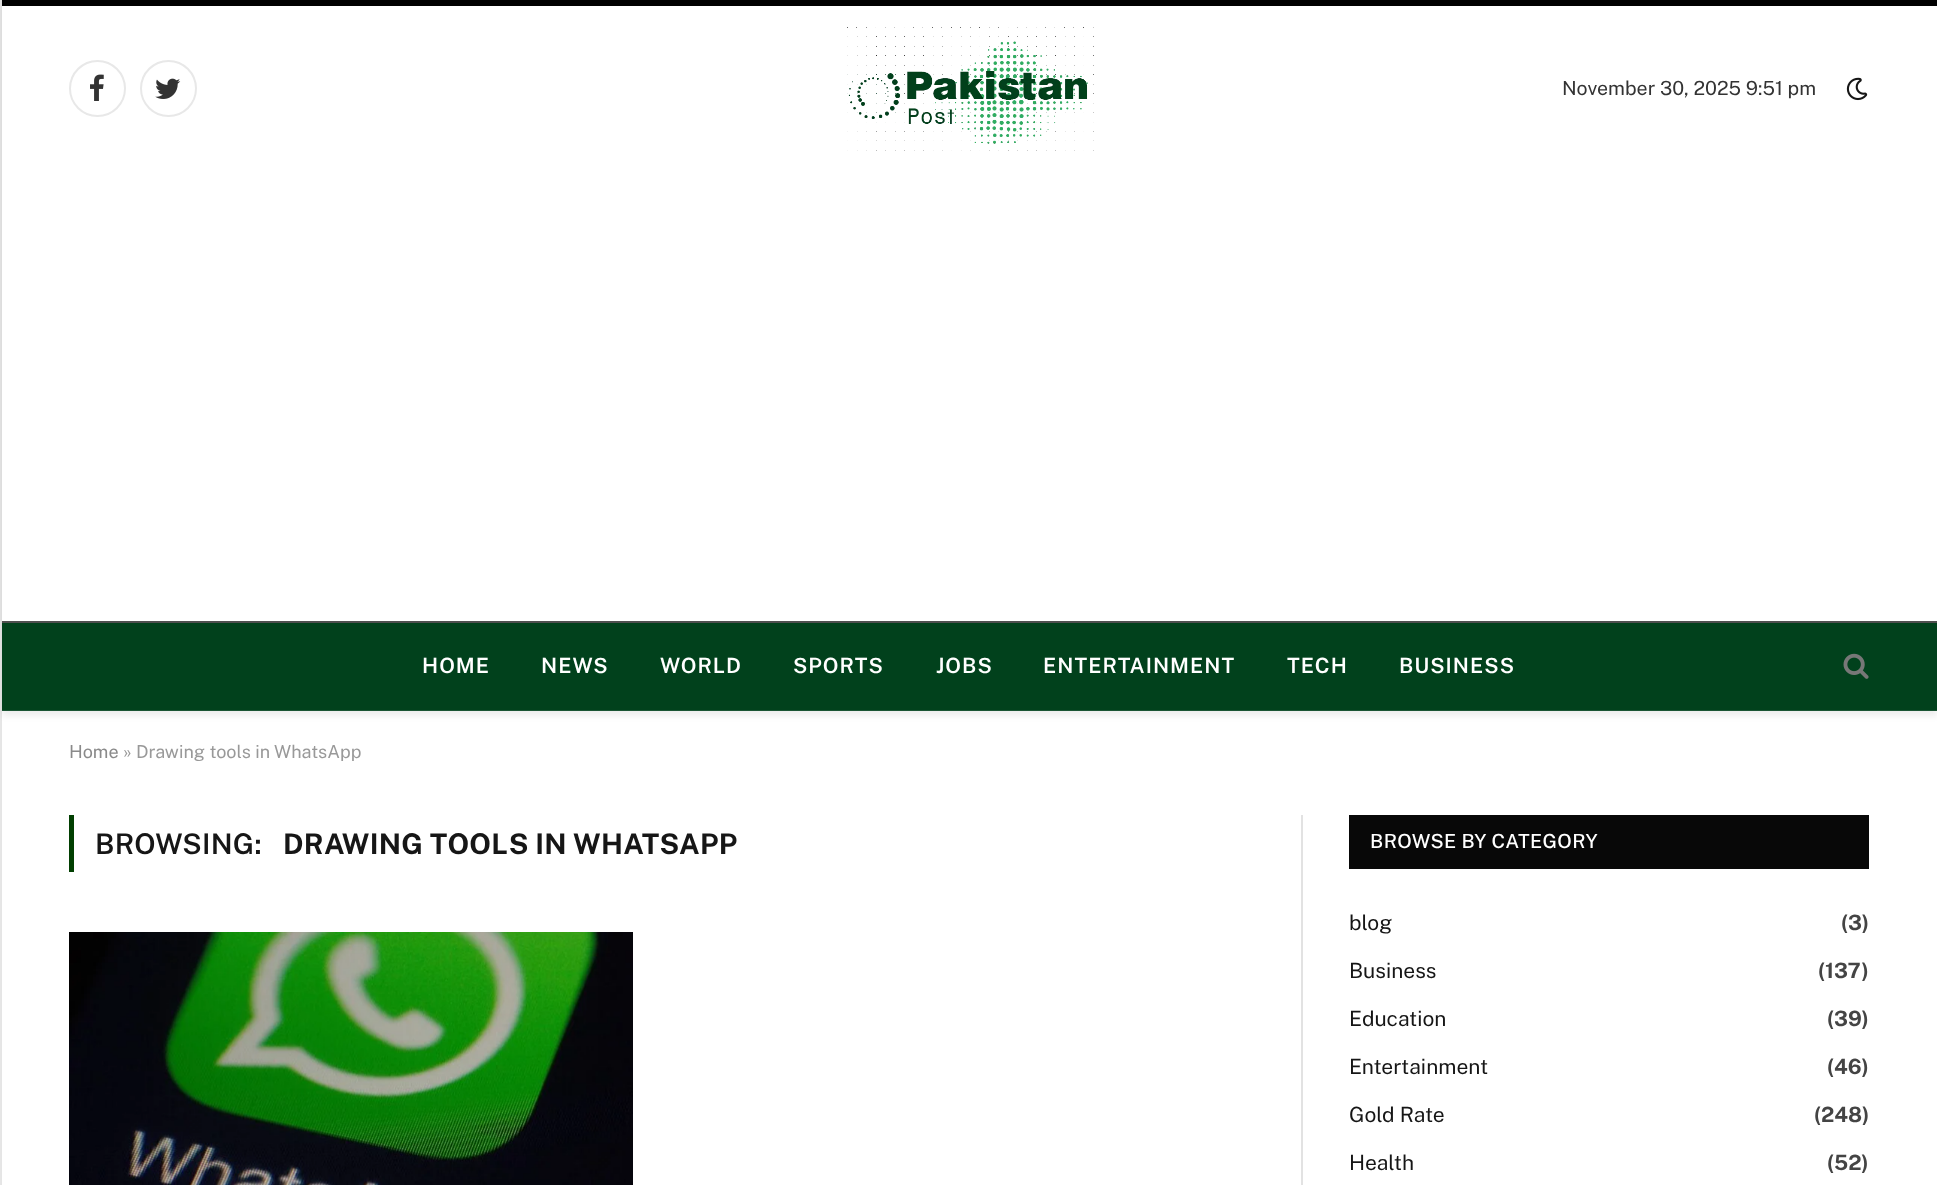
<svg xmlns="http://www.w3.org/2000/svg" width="1937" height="1185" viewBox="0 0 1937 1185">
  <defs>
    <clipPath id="clip1"><path d="M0 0H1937V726H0ZM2-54H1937V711H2Z" clip-rule="evenodd"/></clipPath>
  </defs>
  <rect width="100%" height="100%" fill="#efefef"/>
  <path d="M2 -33h1935v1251H2z" fill="#00000014" filter="blur(11px)"/>
  <path d="M2 6h1935v1179H2z" fill="#fff"/>
  <g clip-path="url(#clip1)">
    <path d="M2 -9h1935v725H2z" fill="#00000012" filter="blur(3px)"/>
  </g>
  <path d="M2 0h1935v6H2z" fill="#000"/>
  <circle cx="97.5" cy="88.5" r="27.5" fill="none" stroke="#e8e8e8" stroke-width="2"/>
  <image x="90" y="74" width="14" height="27" href="img/1.png"/>
  <circle cx="168.5" cy="88.5" r="27.5" fill="none" stroke="#e8e8e8" stroke-width="2"/>
  <image x="155" y="78" width="26" height="21" href="img/2.png"/>
  <image x="847" y="27" width="247" height="124" href="img/3.png"/>
  <image x="1846" y="77" width="22" height="24" href="img/4.png"/>
  <path d="M2 623h1935v88H2z" fill="#01411c"/>
  <path d="M2 621h1935v2H2z" fill="#4f4f4f"/>
  <path d="M2 710h1935v1H2z" fill="#ffffff1a"/>
  <image x="1843" y="653" width="26" height="26" href="img/5.png"/>
  <path d="M69 815h5v57H69z" fill="#013f01"/>
  <image x="69" y="932" width="564" height="253" href="img/6.png"/>
  <path d="M1301 815h2v370H1301z" fill="#e2e2e2"/>
  <path d="M1349 815h520v54H1349z" fill="#080808"/>
  <text x="1562" y="95" font-family="Public Sans" font-size="19.5" fill="#333">November 30, 2025 9:51 pm</text>
  <g font-family="Public Sans" font-size="21" font-weight="600" letter-spacing="1" fill="#fff">
    <text x="422" y="673">HOME</text>
    <text x="541" y="673">NEWS</text>
    <text x="660" y="673">WORLD</text>
    <text x="793" y="673">SPORTS</text>
    <text x="936" y="673">JOBS</text>
    <text x="1043" y="673">ENTERTAINMENT</text>
    <text x="1287" y="673">TECH</text>
    <text x="1399" y="673">BUSINESS</text>
  </g>
  <text x="69" y="758" font-family="Public Sans" font-size="18" fill="#8a8a8a">Home</text>
  <text x="123" y="758" font-family="Public Sans" font-size="18" fill="#999">» Drawing tools in WhatsApp</text>
  <text x="95" y="854" font-family="Public Sans" font-size="28.5" font-weight="600" letter-spacing="0.25" fill="#161616">BROWSING:</text>
  <text x="283" y="854" font-family="Public Sans" font-size="28.5" font-weight="bold" letter-spacing="0.25" fill="#161616">DRAWING TOOLS IN WHATSAPP</text>
  <text x="1370" y="848" font-family="Public Sans" font-size="19.5" font-weight="500" letter-spacing="0.4" fill="#fff">BROWSE BY CATEGORY</text>
  <text x="1349" y="930" font-family="Public Sans" font-size="21" fill="#161616">blog</text>
  <text x="1841" y="930" font-family="Public Sans" font-size="21" font-weight="bold" fill="#444">(3)</text>
  <text x="1349" y="978" font-family="Public Sans" font-size="21" fill="#161616">Business</text>
  <text x="1818" y="978" font-family="Public Sans" font-size="21" font-weight="bold" fill="#444">(137)</text>
  <text x="1349" y="1026" font-family="Public Sans" font-size="21" fill="#161616">Education</text>
  <text x="1827" y="1026" font-family="Public Sans" font-size="21" font-weight="bold" fill="#444">(39)</text>
  <text x="1349" y="1074" font-family="Public Sans" font-size="21" fill="#161616">Entertainment</text>
  <text x="1827" y="1074" font-family="Public Sans" font-size="21" font-weight="bold" fill="#444">(46)</text>
  <text x="1349" y="1122" font-family="Public Sans" font-size="21" fill="#161616">Gold Rate</text>
  <text x="1814" y="1122" font-family="Public Sans" font-size="21" font-weight="bold" fill="#444">(248)</text>
  <text x="1349" y="1170" font-family="Public Sans" font-size="21" fill="#161616">Health</text>
  <text x="1827" y="1170" font-family="Public Sans" font-size="21" font-weight="bold" fill="#444">(52)</text>
</svg>
